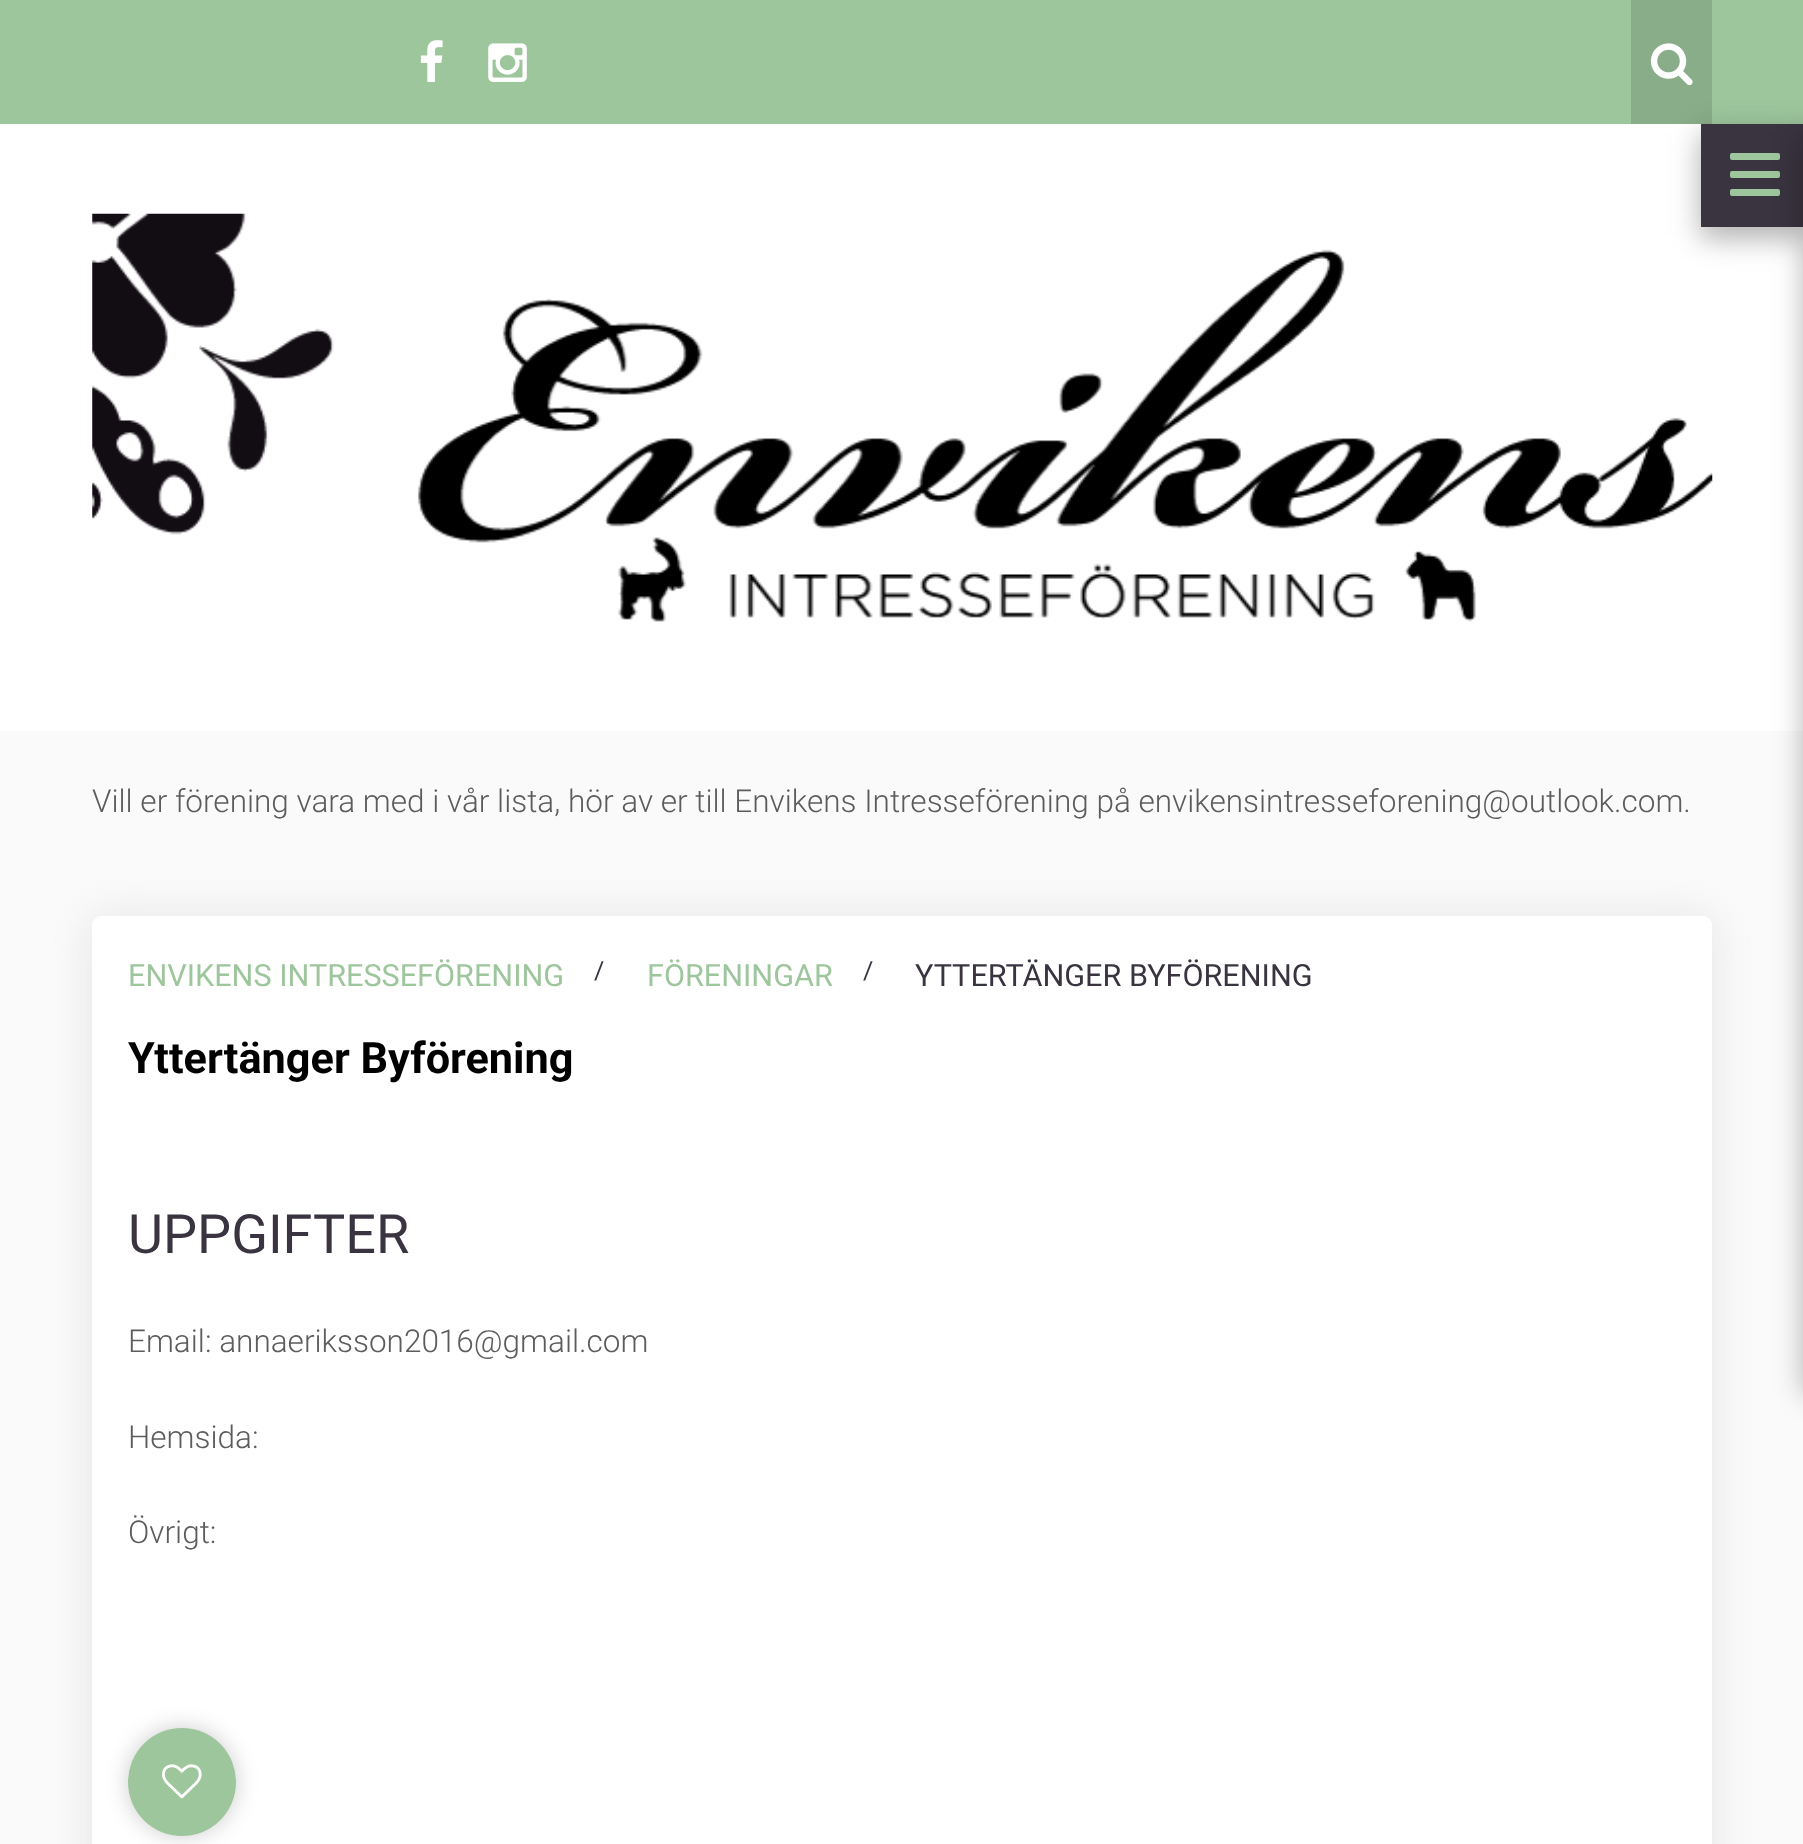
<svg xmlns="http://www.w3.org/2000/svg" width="1803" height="1844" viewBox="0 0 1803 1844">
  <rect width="100%" height="100%" fill="#fafafa"/>
  <path d="M0 0h1803v124H0z" fill="#9ec69d"/>
  <image x="420" y="40" width="23" height="42" href="img/1.png"/>
  <image x="488" y="43" width="39" height="39" href="img/2.png"/>
  <path d="M1631 0h81v124H1631z" fill="#8aad89"/>
  <image x="1650" y="43" width="43" height="43" href="img/3.png"/>
  <path d="M0 124h1803v607H0z" fill="#fff"/>
  <image x="92" y="213" width="1621" height="409" href="img/4.png"/>
  <path d="M1701 133h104v103H1701z" fill="#00000026" filter="blur(17px)"/>
  <path d="M1701 135h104v104H1701z" fill="#0000002e" filter="blur(12.5px)"/>
  <path d="M1701 124h102v103H1701z" fill="#393440"/>
  <rect x="1730" y="153" width="50" height="7" rx="2" fill="#9ec69d"/>
  <rect x="1730" y="171" width="50" height="7" rx="2" fill="#9ec69d"/>
  <rect x="1730" y="189" width="50" height="7" rx="2" fill="#9ec69d"/>
  <path d="M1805 133h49v1260H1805z" fill="#00000026" filter="blur(17px)"/>
  <path d="M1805 135h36v1260H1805z" fill="#0000002e" filter="blur(12.5px)"/>
  <rect x="92" y="918" width="1620" height="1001" rx="9" fill="#d0d0d080" filter="blur(22.5px)"/>
  <rect x="92" y="916" width="1620" height="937" rx="9" fill="#fff"/>
  <rect x="128" y="1728" width="108" height="108" rx="54" fill="#00000033" filter="blur(11px)"/>
  <circle cx="182" cy="1782" r="54" fill="#9ec69d"/>
  <image x="162" y="1764" width="40" height="35" href="img/5.png"/>
  <text x="92" y="812" font-family="Roboto" font-size="31.5" font-weight="300" fill="#5d5c5c">Vill er förening vara med i vår lista, hör av er till Envikens Intresseförening på envikensintresseforening@outlook.com.</text>
  <text x="128" y="986" font-family="Roboto" font-size="30.6" fill="#9ec69d">ENVIKENS INTRESSEFÖRENING</text>
  <text x="594" y="979" font-family="Roboto" font-size="25" fill="#393440">/</text>
  <text x="647" y="986" font-family="Roboto" font-size="30.6" fill="#9ec69d">FÖRENINGAR</text>
  <text x="863" y="979" font-family="Roboto" font-size="25" fill="#393440">/</text>
  <text x="915" y="986" font-family="Roboto" font-size="30.6" fill="#393440">YTTERTÄNGER BYFÖRENING</text>
  <text x="128" y="1073" font-family="Roboto" font-size="43.25" font-weight="bold" fill="#000">Yttertänger Byförening</text>
  <text x="128" y="1253" font-family="Roboto" font-size="54" fill="#393440">UPPGIFTER</text>
  <g font-family="Roboto" font-size="31.5" font-weight="300" fill="#5d5c5c">
    <text x="128" y="1352">Email: annaeriksson2016@gmail.com</text>
    <text x="128" y="1448">Hemsida:</text>
    <text x="128" y="1543">Övrigt:</text>
  </g>
</svg>
